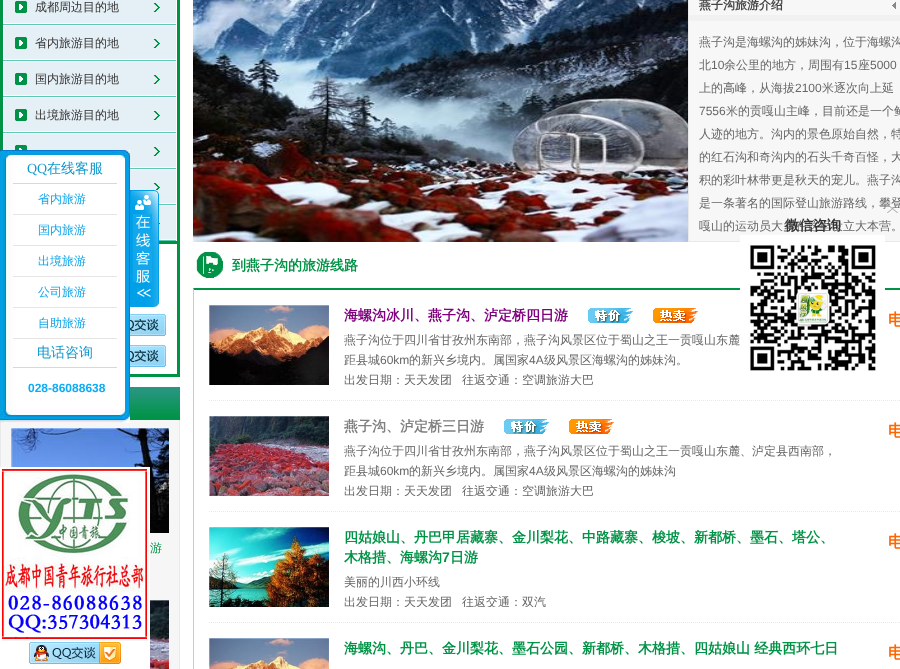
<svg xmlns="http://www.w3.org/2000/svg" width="900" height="669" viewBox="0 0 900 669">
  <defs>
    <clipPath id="clip1"><path d="M344 370h500v15H344z"/></clipPath>
    <clipPath id="clip2"><path d="M344 481h500v15H344z"/></clipPath>
    <clipPath id="clip3"><path d="M344 592h500v15H344z"/></clipPath>
  </defs>
  <rect width="100%" height="100%" fill="#fff"/>
  <image x="0" y="0" width="180" height="374" href="img/1.png"/>
  <path d="M130 374h50v3H130z" fill="#009345"/>
  <path d="M159 241h21v3H159z" fill="#009345"/>
  <image x="3" y="0" width="173" height="25" href="img/2.png"/>
  <image x="3" y="26" width="173" height="35" href="img/3.png"/>
  <image x="3" y="62" width="173" height="35" href="img/3.png"/>
  <image x="3" y="98" width="173" height="35" href="img/3.png"/>
  <image x="3" y="134" width="173" height="35" href="img/3.png"/>
  <image x="130" y="170" width="46" height="35" href="img/4.png"/>
  <image x="159" y="206" width="17" height="35" href="img/5.png"/>
  <image x="130" y="314" width="36" height="22" href="img/6.png"/>
  <image x="130" y="345" width="36" height="22" href="img/6.png"/>
  <image x="130" y="387" width="50" height="33" href="img/7.png"/>
  <path d="M1 420h178v249H1z" fill="#f6f6f6"/>
  <path d="M179 420h1v249H179z" fill="#eaeaea"/>
  <path d="M0 420h1v47H0z" fill="#eaeaea"/>
  <image x="11" y="428" width="158" height="105" href="img/8.png"/>
  <image x="150" y="600" width="19" height="69" href="img/9.png"/>
  <image x="193" y="0" width="495" height="242" href="img/10.png"/>
  <path d="M688.5 -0.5h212v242H688.5z" fill="#f7f7f7" stroke="#e9e9e9"/>
  <path d="M689 15h211v6H689z" fill="#f1f1f1"/>
  <image x="892" y="2" width="4" height="7" href="img/11.png"/>
  <image x="196" y="252" width="27" height="26" href="img/12.png"/>
  <path d="M193 288H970L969 290H194Z" fill="#009346"/>
  <path d="M193 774V288L194 290V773Z" fill="#ccc"/>
  <path d="M209 400.5H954" fill="none" stroke="#e9e9e9" stroke-dasharray="1 1"/>
  <image x="209" y="305" width="120" height="80" href="img/13.png"/>
  <image x="588" y="308" width="45" height="15" href="img/14.png"/>
  <image x="653" y="308" width="45" height="15" href="img/15.png"/>
  <path d="M209 511.5H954" fill="none" stroke="#e9e9e9" stroke-dasharray="1 1"/>
  <image x="209" y="416" width="120" height="80" href="img/16.png"/>
  <image x="504" y="419" width="45" height="15" href="img/14.png"/>
  <image x="569" y="419" width="45" height="15" href="img/15.png"/>
  <path d="M209 622.5H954" fill="none" stroke="#e9e9e9" stroke-dasharray="1 1"/>
  <image x="209" y="527" width="120" height="80" href="img/17.png"/>
  <image x="209" y="638" width="120" height="31" href="img/18.png"/>
  <image x="0" y="160" width="130" height="249" href="img/19.png"/>
  <image x="0" y="150" width="130" height="10" href="img/20.png"/>
  <path d="M13 183h104v1H13z" fill="#b6e3f8"/>
  <path d="M13 214h104v1H13z" fill="#e6e5e4"/>
  <path d="M13 245h104v1H13z" fill="#e6e5e4"/>
  <path d="M13 276h104v1H13z" fill="#e6e5e4"/>
  <path d="M13 307h104v1H13z" fill="#e6e5e4"/>
  <path d="M13 338h104v1H13z" fill="#e6e5e4"/>
  <path d="M13 367h104v1H13z" fill="#b6e3f8"/>
  <image x="0" y="409" width="130" height="14" href="img/21.png"/>
  <image x="130" y="190" width="29" height="117" href="img/22.png"/>
  <image x="740" y="235" width="145" height="136" href="img/24.png"/>
  <path d="M1 643h149v26H1z" fill="#fff"/>
  <image x="0" y="467" width="150" height="176" href="img/25.png"/>
  <image x="29" y="642" width="92" height="22" href="img/26.png"/>
  <g font-family="WenQuanYi Zen Hei" font-size="12" font-weight="500" fill="#343233">
    <text x="35" y="11">成都周边目的地</text>
    <text x="35" y="47">省内旅游目的地</text>
    <text x="35" y="83">国内旅游目的地</text>
    <text x="35" y="119">出境旅游目的地</text>
  </g>
  <text x="150" y="552" font-family="WenQuanYi Zen Hei" font-size="12" font-weight="500" fill="#009346">游</text>
  <text x="699" y="9" font-family="WenQuanYi Zen Hei" font-size="12" font-weight="bold" fill="#444">燕子沟旅游介绍</text>
  <g font-family="WenQuanYi Zen Hei" font-size="12" font-weight="500" fill="#666">
    <text x="699" y="46">燕子沟是海螺沟的姊妹沟，位于海螺沟</text>
    <text x="699" y="69">北</text>
  </g>
  <text x="711" y="69" font-family="Liberation Sans" font-size="12" fill="#666">10</text>
  <text x="724" y="69" font-family="WenQuanYi Zen Hei" font-size="12" font-weight="500" fill="#666">余公里的地方，周围有</text>
  <text x="844" y="69" font-family="Liberation Sans" font-size="12" fill="#666">15</text>
  <text x="858" y="69" font-family="WenQuanYi Zen Hei" font-size="12" font-weight="500" fill="#666">座</text>
  <text x="870" y="69" font-family="Liberation Sans" font-size="12" fill="#666">5000</text>
  <text x="699" y="92" font-family="WenQuanYi Zen Hei" font-size="12" font-weight="500" fill="#666">上的高峰，从海拔</text>
  <text x="795" y="92" font-family="Liberation Sans" font-size="12" fill="#666">2100</text>
  <text x="822" y="92" font-family="WenQuanYi Zen Hei" font-size="12" font-weight="500" fill="#666">米逐次向上延</text>
  <text x="699" y="115" font-family="Liberation Sans" font-size="12" fill="#666">7556</text>
  <g font-family="WenQuanYi Zen Hei" font-size="12" font-weight="500" fill="#666">
    <text x="726" y="115">米的贡嘎山主峰，目前还是一个鲜</text>
    <text x="699" y="138">人迹的地方。沟内的景色原始自然，特</text>
    <text x="699" y="161">的红石沟和奇沟内的石头千奇百怪，大</text>
    <text x="699" y="184">积的彩叶林带更是秋天的宠儿。燕子沟</text>
    <text x="699" y="207">是一条著名的国际登山旅游路线，攀登</text>
    <text x="699" y="230">嘎山的运动员大多在这里设立大本营。</text>
  </g>
  <text x="232" y="270" font-family="WenQuanYi Zen Hei" font-size="14" font-weight="bold" fill="#009346">到燕子沟的旅游线路</text>
  <text x="344" y="320" font-family="WenQuanYi Zen Hei" font-size="14" font-weight="bold" fill="#800080">海螺沟冰川、燕子沟、泸定桥四日游</text>
  <g font-family="WenQuanYi Zen Hei" font-size="12" font-weight="500" fill="#666">
    <text x="344" y="344">燕子沟位于四川省甘孜州东南部，燕子沟风景区位于蜀山之王一贡嘎山东麓</text>
    <text x="344" y="364">距县城</text>
  </g>
  <text x="380" y="364" font-family="Liberation Sans" font-size="12" fill="#666">60km</text>
  <text x="409" y="364" font-family="WenQuanYi Zen Hei" font-size="12" font-weight="500" fill="#666">的新兴乡境内。属国家</text>
  <text x="529" y="364" font-family="Liberation Sans" font-size="12" fill="#666">4A</text>
  <text x="544" y="364" font-family="WenQuanYi Zen Hei" font-size="12" font-weight="500" fill="#666">级风景区海螺沟的姊妹沟。</text>
  <g clip-path="url(#clip1)">
    <g font-family="WenQuanYi Zen Hei" font-size="12" font-weight="500" fill="#666">
      <text x="344" y="384">出发日期：天天发团</text>
      <text x="462" y="384">往返交通：空调旅游大巴</text>
    </g>
  </g>
  <text x="888" y="325" font-family="WenQuanYi Zen Hei" font-size="16" font-weight="bold" fill="#fe6700">电</text>
  <text x="344" y="431" font-family="WenQuanYi Zen Hei" font-size="14" font-weight="bold" fill="#808080">燕子沟、泸定桥三日游</text>
  <g font-family="WenQuanYi Zen Hei" font-size="12" font-weight="500" fill="#666">
    <text x="344" y="455">燕子沟位于四川省甘孜州东南部，燕子沟风景区位于蜀山之王一贡嘎山东麓、泸定县西南部，</text>
    <text x="344" y="475">距县城</text>
  </g>
  <text x="380" y="475" font-family="Liberation Sans" font-size="12" fill="#666">60km</text>
  <text x="409" y="475" font-family="WenQuanYi Zen Hei" font-size="12" font-weight="500" fill="#666">的新兴乡境内。属国家</text>
  <text x="529" y="475" font-family="Liberation Sans" font-size="12" fill="#666">4A</text>
  <text x="544" y="475" font-family="WenQuanYi Zen Hei" font-size="12" font-weight="500" fill="#666">级风景区海螺沟的姊妹沟</text>
  <g clip-path="url(#clip2)">
    <g font-family="WenQuanYi Zen Hei" font-size="12" font-weight="500" fill="#666">
      <text x="344" y="495">出发日期：天天发团</text>
      <text x="462" y="495">往返交通：空调旅游大巴</text>
    </g>
  </g>
  <text x="888" y="436" font-family="WenQuanYi Zen Hei" font-size="16" font-weight="bold" fill="#fe6700">电</text>
  <g font-family="WenQuanYi Zen Hei" font-size="14" font-weight="bold" fill="#009346">
    <text x="344" y="542">四姑娘山、丹巴甲居藏寨、金川梨花、中路藏寨、梭坡、新都桥、墨石、塔公、</text>
    <text x="344" y="562">木格措、海螺沟</text>
  </g>
  <text x="442" y="562" font-family="Liberation Sans" font-size="14" font-weight="bold" fill="#009346">7</text>
  <text x="450" y="562" font-family="WenQuanYi Zen Hei" font-size="14" font-weight="bold" fill="#009346">日游</text>
  <text x="344" y="586" font-family="WenQuanYi Zen Hei" font-size="12" font-weight="500" fill="#666">美丽的川西小环线</text>
  <g clip-path="url(#clip3)">
    <g font-family="WenQuanYi Zen Hei" font-size="12" font-weight="500" fill="#666">
      <text x="344" y="606">出发日期：天天发团</text>
      <text x="462" y="606">往返交通：双汽</text>
    </g>
  </g>
  <text x="888" y="547" font-family="WenQuanYi Zen Hei" font-size="16" font-weight="bold" fill="#fe6700">电</text>
  <text x="344" y="653" font-family="WenQuanYi Zen Hei" font-size="14" font-weight="bold" fill="#009346">海螺沟、丹巴、金川梨花、墨石公园、新都桥、木格措、四姑娘山 经典西环七日</text>
  <text x="888" y="658" font-family="WenQuanYi Zen Hei" font-size="16" font-weight="bold" fill="#fe6700">电</text>
  <text x="27" y="173" font-family="Liberation Serif" font-size="14" fill="#1099cd">QQ</text>
  <text x="47" y="173" font-family="WenQuanYi Zen Hei" font-size="14" font-weight="500" fill="#1099cd">在线客服</text>
  <g font-family="WenQuanYi Zen Hei" font-size="12" font-weight="500" fill="#0ea5ea">
    <text x="38" y="203">省内旅游</text>
    <text x="38" y="234">国内旅游</text>
    <text x="38" y="265">出境旅游</text>
    <text x="38" y="296">公司旅游</text>
    <text x="38" y="327">自助旅游</text>
  </g>
  <text x="37" y="357" font-family="WenQuanYi Zen Hei" font-size="14" font-weight="500" fill="#1099cd">电话咨询</text>
  <text x="28" y="392" font-family="Liberation Sans" font-size="12" font-weight="bold" fill="#0aacf5">028-86088638</text>
  <image x="887" y="204" width="11" height="9" href="img/23.png"/>
  <text x="785" y="230" font-family="WenQuanYi Zen Hei" font-size="14" font-weight="bold" fill="#343233">微信咨询</text>
</svg>
